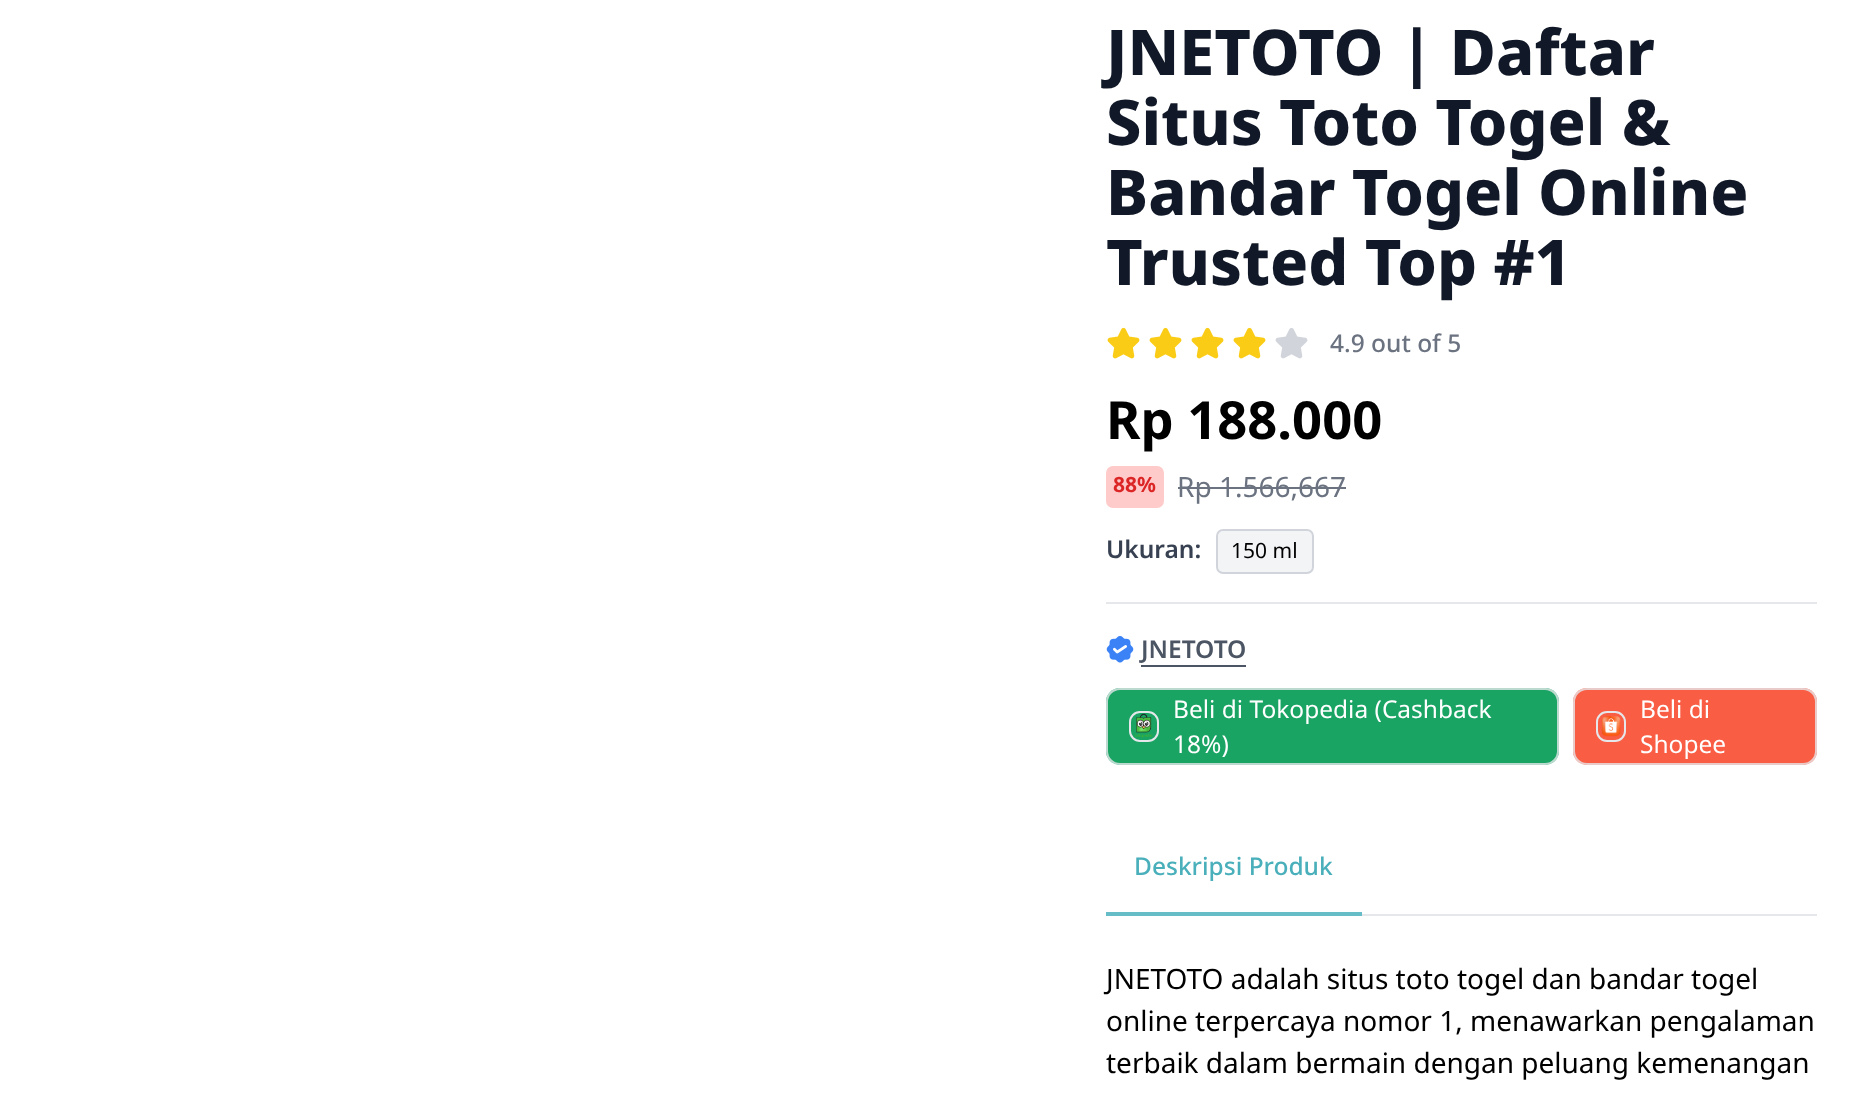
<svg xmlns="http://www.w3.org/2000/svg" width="1857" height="1106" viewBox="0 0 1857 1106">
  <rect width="100%" height="100%" fill="#fff"/>
  <image x="1107" y="327" width="33" height="32" href="img/1.png"/>
  <image x="1149" y="327" width="33" height="32" href="img/1.png"/>
  <image x="1191" y="327" width="33" height="32" href="img/1.png"/>
  <image x="1233" y="327" width="33" height="32" href="img/1.png"/>
  <image x="1275" y="328" width="33" height="31" href="img/2.png"/>
  <rect x="1106" y="466" width="58" height="42" rx="7" fill="#fecaca"/>
  <path d="M1178 487h168v2H1178z" fill="#6b7280"/>
  <rect x="1217" y="530" width="96" height="43" rx="6" fill="#f3f4f6" stroke="#d1d5db" stroke-width="2"/>
  <path d="M1106 602h711v2H1106z" fill="#e5e7eb"/>
  <image x="1106" y="636" width="28" height="27" href="img/3.png"/>
  <path d="M1141 665h105v2H1141z" fill="#4b5563"/>
  <rect x="1106" y="688" width="453" height="77" rx="14" fill="#1aa464"/>
  <rect x="1107" y="689" width="451" height="75" rx="13" fill="none" stroke="#e5e7ebcc" stroke-width="2"/>
  <rect x="1130" y="712" width="28" height="29" rx="10" fill="none" stroke="#e5e7eb" stroke-width="2"/>
  <image x="1134" y="713" width="19" height="25" href="img/4.png"/>
  <rect x="1573" y="688" width="244" height="77" rx="14" fill="#f95d44"/>
  <rect x="1574" y="689" width="242" height="75" rx="13" fill="none" stroke="#e5e7ebcc" stroke-width="2"/>
  <rect x="1597" y="712" width="28" height="29" rx="10" fill="none" stroke="#e5e7eb" stroke-width="2"/>
  <image x="1601" y="716" width="20" height="21" href="img/5.png"/>
  <path d="M1362 914h455v2H1362z" fill="#e5e7eb"/>
  <path d="M1106 912h256v4H1106z" fill="#66bdc7"/>
  <g font-family="Noto Sans" font-size="63" font-weight="800" fill="#111827">
    <text x="1106" y="75">JNETOTO | Daftar</text>
    <text x="1106" y="145">Situs Toto Togel &amp;</text>
    <text x="1106" y="215">Bandar Togel Online</text>
    <text x="1106" y="285">Trusted Top #1</text>
  </g>
  <text x="1330" y="352" font-family="Noto Sans" font-size="24.5" font-weight="500" fill="#6b7280">4.9 out of 5</text>
  <text x="1106" y="439" font-family="Noto Sans" font-size="52.5" font-weight="bold" fill="#000">Rp 188.000</text>
  <text x="1113" y="492" font-family="Noto Sans" font-size="21" font-weight="bold" fill="#dc2626">88%</text>
  <text x="1177" y="497" font-family="Noto Sans" font-size="28" fill="#6b7280">Rp 1.566,667</text>
  <text x="1106" y="558" font-family="Noto Sans" font-size="24.5" font-weight="600" fill="#374151">Ukuran:</text>
  <text x="1231" y="558" font-family="Noto Sans" font-size="21" fill="#000">150 ml</text>
  <text x="1141" y="658" font-family="Noto Sans" font-size="24.5" font-weight="600" fill="#4b5563">JNETOTO</text>
  <g font-family="Noto Sans" font-size="24.5" fill="#fff">
    <text x="1173" y="718">Beli di Tokopedia (Cashback</text>
    <text x="1173" y="753">18%)</text>
    <text x="1640" y="718">Beli di</text>
    <text x="1640" y="753">Shopee</text>
  </g>
  <text x="1134" y="875" font-family="Noto Sans" font-size="24.5" font-weight="500" fill="#49afba">Deskripsi Produk</text>
  <g font-family="Noto Sans" font-size="28" fill="#000">
    <text x="1106" y="989">JNETOTO adalah situs toto togel dan bandar togel</text>
    <text x="1106" y="1031">online terpercaya nomor 1, menawarkan pengalaman</text>
    <text x="1106" y="1073">terbaik dalam bermain dengan peluang kemenangan</text>
  </g>
</svg>
